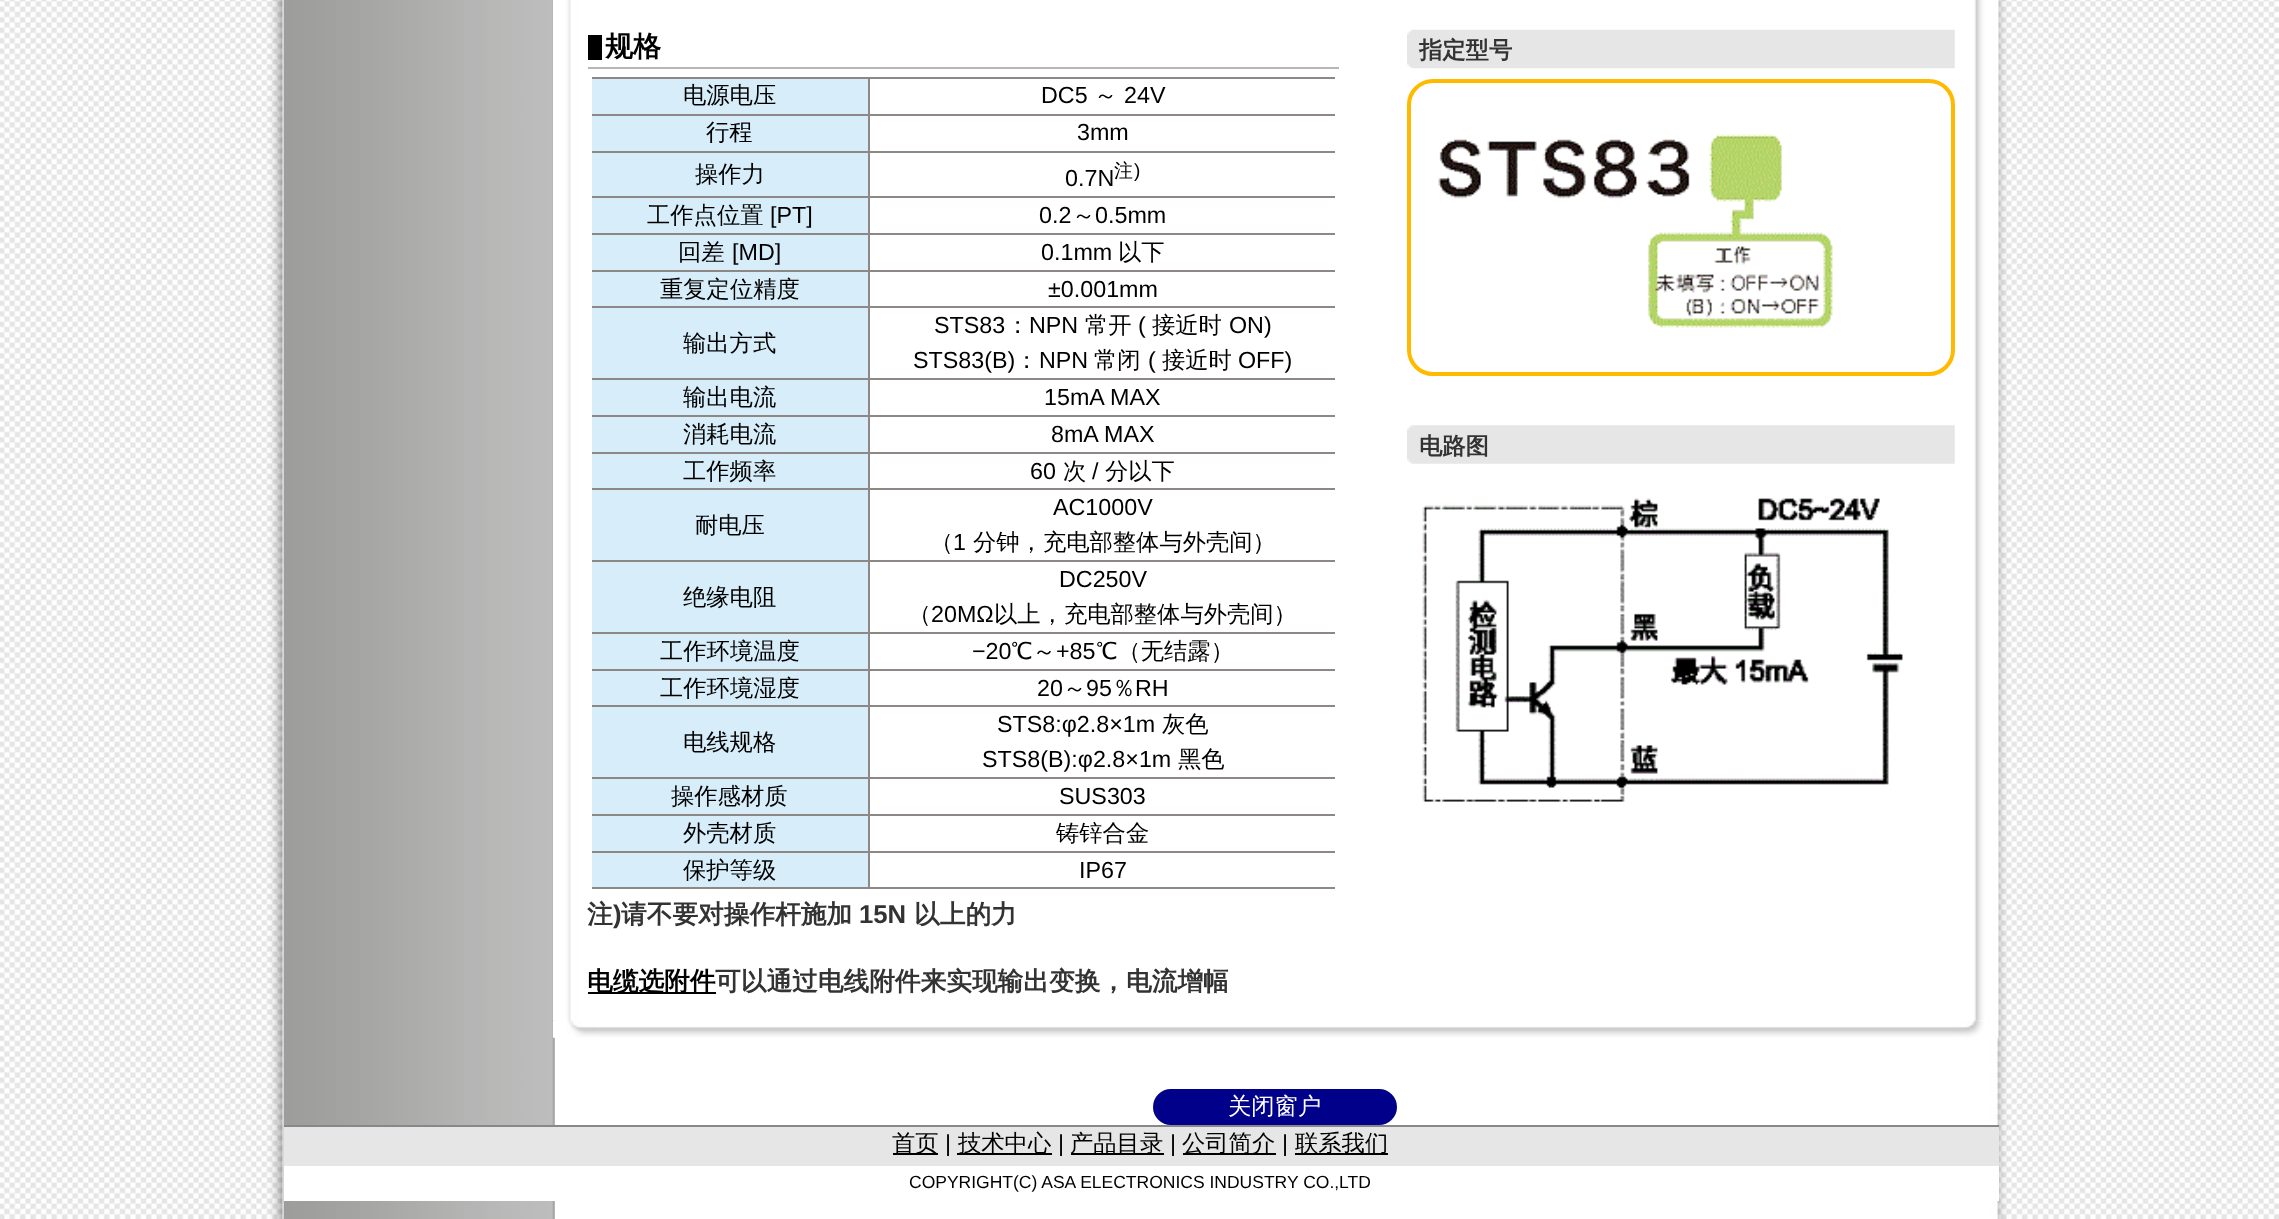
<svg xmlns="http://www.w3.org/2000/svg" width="2279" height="1219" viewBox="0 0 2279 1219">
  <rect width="100%" height="100%" fill="#fff"/>
  <image x="0" y="0" width="2279" height="1219" href="img/1.png"/>
  <image x="283" y="0" width="272" height="1219" href="img/2.png"/>
  <image x="553" y="1020" width="1446" height="18" href="img/3.png"/>
  <image x="553" y="0" width="1446" height="1021" href="img/4.png"/>
  <path d="M588 35h14v25H588z" fill="#000"/>
  <path d="M588 67h751v2H588z" fill="#b7b5b5"/>
  <path d="M868 77h471v2H868z" fill="#8d8885"/>
  <path d="M868 114h471v2H868z" fill="#8d8885"/>
  <path d="M868 151h471v2H868z" fill="#8d8885"/>
  <path d="M868 196h471v2H868z" fill="#8d8885"/>
  <path d="M868 233h471v2H868z" fill="#8d8885"/>
  <path d="M868 270h471v2H868z" fill="#8d8885"/>
  <path d="M868 306h471v2H868z" fill="#8d8885"/>
  <path d="M868 378h471v2H868z" fill="#8d8885"/>
  <path d="M868 415h471v2H868z" fill="#8d8885"/>
  <path d="M868 452h471v2H868z" fill="#8d8885"/>
  <path d="M868 488h471v2H868z" fill="#8d8885"/>
  <path d="M868 560h471v2H868z" fill="#8d8885"/>
  <path d="M868 632h471v2H868z" fill="#8d8885"/>
  <path d="M868 669h471v2H868z" fill="#8d8885"/>
  <path d="M868 705h471v2H868z" fill="#8d8885"/>
  <path d="M868 777h471v2H868z" fill="#8d8885"/>
  <path d="M868 814h471v2H868z" fill="#8d8885"/>
  <path d="M868 851h471v2H868z" fill="#8d8885"/>
  <path d="M868 887h471v2H868z" fill="#8d8885"/>
  <path d="M1335 77h4v812H1335z" fill="#fff"/>
  <path d="M868 851h2v38H868z" fill="#8d8885"/>
  <path d="M588 851h282v2H588z" fill="#8d8885"/>
  <path d="M868 814h2v38H868z" fill="#8d8885"/>
  <path d="M588 814h282v2H588z" fill="#8d8885"/>
  <path d="M868 777h2v39H868z" fill="#8d8885"/>
  <path d="M588 777h282v2H588z" fill="#8d8885"/>
  <path d="M868 705h2v74H868z" fill="#8d8885"/>
  <path d="M588 705h282v2H588z" fill="#8d8885"/>
  <path d="M868 669h2v38H868z" fill="#8d8885"/>
  <path d="M588 669h282v2H588z" fill="#8d8885"/>
  <path d="M868 632h2v38H868z" fill="#8d8885"/>
  <path d="M588 632h282v2H588z" fill="#8d8885"/>
  <path d="M868 560h2v74H868z" fill="#8d8885"/>
  <path d="M588 560h282v2H588z" fill="#8d8885"/>
  <path d="M868 488h2v74H868z" fill="#8d8885"/>
  <path d="M588 488h282v2H588z" fill="#8d8885"/>
  <path d="M868 452h2v38H868z" fill="#8d8885"/>
  <path d="M588 452h282v2H588z" fill="#8d8885"/>
  <path d="M868 415h2v38H868z" fill="#8d8885"/>
  <path d="M588 415h282v2H588z" fill="#8d8885"/>
  <path d="M868 378h2v39H868z" fill="#8d8885"/>
  <path d="M588 378h282v2H588z" fill="#8d8885"/>
  <path d="M868 306h2v74H868z" fill="#8d8885"/>
  <path d="M588 306h282v2H588z" fill="#8d8885"/>
  <path d="M868 270h2v38H868z" fill="#8d8885"/>
  <path d="M588 270h282v2H588z" fill="#8d8885"/>
  <path d="M868 233h2v38H868z" fill="#8d8885"/>
  <path d="M588 233h282v2H588z" fill="#8d8885"/>
  <path d="M868 196h2v39H868z" fill="#8d8885"/>
  <path d="M588 196h282v2H588z" fill="#8d8885"/>
  <path d="M868 151h2v47H868z" fill="#8d8885"/>
  <path d="M588 151h282v2H588z" fill="#8d8885"/>
  <path d="M868 114h2v38H868z" fill="#8d8885"/>
  <path d="M588 114h282v2H588z" fill="#8d8885"/>
  <path d="M868 77h2v39H868z" fill="#8d8885"/>
  <path d="M588 77h282v2H588z" fill="#8d8885"/>
  <path d="M588 887h282v2H588z" fill="#8d8885"/>
  <path d="M588 77h4v812H588z" fill="#fff"/>
  <path d="M592 79h276v35H592z" fill="#d7eefa"/>
  <path d="M592 116h276v35H592z" fill="#d7eefa"/>
  <path d="M592 153h276v43H592z" fill="#d7eefa"/>
  <path d="M592 198h276v35H592z" fill="#d7eefa"/>
  <path d="M592 235h276v35H592z" fill="#d7eefa"/>
  <path d="M592 272h276v34H592z" fill="#d7eefa"/>
  <path d="M592 308h276v70H592z" fill="#d7eefa"/>
  <path d="M592 380h276v35H592z" fill="#d7eefa"/>
  <path d="M592 417h276v35H592z" fill="#d7eefa"/>
  <path d="M592 454h276v34H592z" fill="#d7eefa"/>
  <path d="M592 490h276v70H592z" fill="#d7eefa"/>
  <path d="M592 562h276v70H592z" fill="#d7eefa"/>
  <path d="M592 634h276v35H592z" fill="#d7eefa"/>
  <path d="M592 671h276v34H592z" fill="#d7eefa"/>
  <path d="M592 707h276v70H592z" fill="#d7eefa"/>
  <path d="M592 779h276v35H592z" fill="#d7eefa"/>
  <path d="M592 816h276v35H592z" fill="#d7eefa"/>
  <path d="M592 853h276v34H592z" fill="#d7eefa"/>
  <path d="M588 992h128v2H588z" fill="#000"/>
  <image x="1407" y="29" width="548" height="40" href="img/5.png"/>
  <rect x="1409" y="81" width="544" height="293" rx="24" fill="none" stroke="#ffba00" stroke-width="4"/>
  <image x="1438" y="134" width="395" height="194" href="img/6.png"/>
  <image x="1407" y="425" width="548" height="39" href="img/7.png"/>
  <image x="1422" y="498" width="481" height="304" href="img/8.png"/>
  <rect x="1155.5" y="1091.5" width="239" height="31" rx="15.5" fill="#00008b" stroke="#00008b" stroke-width="5"/>
  <path d="M284 1127h1715v39H284z" fill="#e6e6e6"/>
  <path d="M284 1125h1715v2H284z" fill="#888"/>
  <path d="M893 1153h45v2H893z" fill="#000"/>
  <path d="M957 1153h95v2H957z" fill="#000"/>
  <path d="M1071 1153h93v2H1071z" fill="#000"/>
  <path d="M1183 1153h93v2H1183z" fill="#000"/>
  <path d="M1295 1153h93v2H1295z" fill="#000"/>
  <path d="M284 1166h1715v35H284z" fill="#fff"/>
  <text x="605" y="56" font-family="WenQuanYi Zen Hei" font-size="28" font-weight="bold" fill="#000">规格</text>
  <text x="683" y="103" font-family="WenQuanYi Zen Hei" font-size="23.3" font-weight="500" fill="#000">电源电压</text>
  <text x="1041" y="103" font-family="Liberation Sans" font-size="23.3" fill="#000">DC5</text>
  <text x="1094" y="103" font-family="WenQuanYi Zen Hei" font-size="23.3" font-weight="500" fill="#000">～</text>
  <text x="1124" y="103" font-family="Liberation Sans" font-size="23.3" fill="#000">24V</text>
  <text x="706" y="140" font-family="WenQuanYi Zen Hei" font-size="23.3" font-weight="500" fill="#000">行程</text>
  <text x="1077" y="140" font-family="Liberation Sans" font-size="23.3" fill="#000">3mm</text>
  <text x="695" y="182" font-family="WenQuanYi Zen Hei" font-size="23.3" font-weight="500" fill="#000">操作力</text>
  <text x="1065" y="186" font-family="Liberation Sans" font-size="23.3" fill="#000">0.7N</text>
  <text x="1114" y="177" font-family="WenQuanYi Zen Hei" font-size="19" font-weight="500" fill="#000">注</text>
  <text x="1134" y="177" font-family="Liberation Sans" font-size="19" fill="#000">)</text>
  <text x="647" y="223" font-family="WenQuanYi Zen Hei" font-size="23.3" font-weight="500" fill="#000">工作点位置</text>
  <g font-family="Liberation Sans" font-size="23.3" fill="#000">
    <text x="770" y="223">[PT]</text>
    <text x="1039" y="223">0.2</text>
  </g>
  <text x="1072" y="223" font-family="WenQuanYi Zen Hei" font-size="23.3" font-weight="500" fill="#000">～</text>
  <text x="1095" y="223" font-family="Liberation Sans" font-size="23.3" fill="#000">0.5mm</text>
  <text x="678" y="260" font-family="WenQuanYi Zen Hei" font-size="23.3" font-weight="500" fill="#000">回差</text>
  <g font-family="Liberation Sans" font-size="23.3" fill="#000">
    <text x="732" y="260">[MD]</text>
    <text x="1041" y="260">0.1mm</text>
  </g>
  <g font-family="WenQuanYi Zen Hei" font-size="23.3" font-weight="500" fill="#000">
    <text x="1118" y="260">以下</text>
    <text x="660" y="297">重复定位精度</text>
  </g>
  <text x="1048" y="297" font-family="Liberation Sans" font-size="23.3" fill="#000">±0.001mm</text>
  <text x="683" y="351" font-family="WenQuanYi Zen Hei" font-size="23.3" font-weight="500" fill="#000">输出方式</text>
  <text x="934" y="333" font-family="Liberation Sans" font-size="23.3" fill="#000">STS83</text>
  <text x="1006" y="333" font-family="WenQuanYi Zen Hei" font-size="23.3" font-weight="500" fill="#000">：</text>
  <text x="1029" y="333" font-family="Liberation Sans" font-size="23.3" fill="#000">NPN</text>
  <text x="1085" y="333" font-family="WenQuanYi Zen Hei" font-size="23.3" font-weight="500" fill="#000">常开</text>
  <text x="1138" y="333" font-family="Liberation Sans" font-size="23.3" fill="#000">(</text>
  <text x="1152" y="333" font-family="WenQuanYi Zen Hei" font-size="23.3" font-weight="500" fill="#000">接近时</text>
  <g font-family="Liberation Sans" font-size="23.3" fill="#000">
    <text x="1229" y="333">ON)</text>
    <text x="913" y="368">STS83(B)</text>
  </g>
  <text x="1015" y="368" font-family="WenQuanYi Zen Hei" font-size="23.3" font-weight="500" fill="#000">：</text>
  <text x="1039" y="368" font-family="Liberation Sans" font-size="23.3" fill="#000">NPN</text>
  <text x="1094" y="368" font-family="WenQuanYi Zen Hei" font-size="23.3" font-weight="500" fill="#000">常闭</text>
  <text x="1148" y="368" font-family="Liberation Sans" font-size="23.3" fill="#000">(</text>
  <text x="1162" y="368" font-family="WenQuanYi Zen Hei" font-size="23.3" font-weight="500" fill="#000">接近时</text>
  <text x="1238" y="368" font-family="Liberation Sans" font-size="23.3" fill="#000">OFF)</text>
  <text x="683" y="405" font-family="WenQuanYi Zen Hei" font-size="23.3" font-weight="500" fill="#000">输出电流</text>
  <text x="1044" y="405" font-family="Liberation Sans" font-size="23.3" fill="#000">15mA MAX</text>
  <text x="683" y="442" font-family="WenQuanYi Zen Hei" font-size="23.3" font-weight="500" fill="#000">消耗电流</text>
  <text x="1051" y="442" font-family="Liberation Sans" font-size="23.3" fill="#000">8mA MAX</text>
  <text x="683" y="479" font-family="WenQuanYi Zen Hei" font-size="23.3" font-weight="500" fill="#000">工作频率</text>
  <text x="1030" y="479" font-family="Liberation Sans" font-size="23.3" fill="#000">60</text>
  <text x="1063" y="479" font-family="WenQuanYi Zen Hei" font-size="23.3" font-weight="500" fill="#000">次</text>
  <text x="1092" y="479" font-family="Liberation Sans" font-size="23.3" fill="#000">/</text>
  <g font-family="WenQuanYi Zen Hei" font-size="23.3" font-weight="500" fill="#000">
    <text x="1105" y="479">分以下</text>
    <text x="695" y="533">耐电压</text>
  </g>
  <text x="1053" y="515" font-family="Liberation Sans" font-size="23.3" fill="#000">AC1000V</text>
  <text x="930" y="550" font-family="WenQuanYi Zen Hei" font-size="23.3" font-weight="500" fill="#000">（</text>
  <text x="953" y="550" font-family="Liberation Sans" font-size="23.3" fill="#000">1</text>
  <g font-family="WenQuanYi Zen Hei" font-size="23.3" font-weight="500" fill="#000">
    <text x="973" y="550">分钟，充电部整体与外壳间）</text>
    <text x="683" y="605">绝缘电阻</text>
  </g>
  <text x="1059" y="587" font-family="Liberation Sans" font-size="23.3" fill="#000">DC250V</text>
  <text x="908" y="622" font-family="WenQuanYi Zen Hei" font-size="23.3" font-weight="500" fill="#000">（</text>
  <text x="931" y="622" font-family="Liberation Sans" font-size="23.3" fill="#000">20MΩ</text>
  <g font-family="WenQuanYi Zen Hei" font-size="23.3" font-weight="500" fill="#000">
    <text x="994" y="622">以上，充电部整体与外壳间）</text>
    <text x="660" y="659">工作环境温度</text>
  </g>
  <text x="972" y="659" font-family="Liberation Sans" font-size="23.3" fill="#000">−20</text>
  <text x="1011" y="659" font-family="WenQuanYi Zen Hei" font-size="23.3" font-weight="500" fill="#000">℃～</text>
  <text x="1056" y="659" font-family="Liberation Sans" font-size="23.3" fill="#000">+85</text>
  <g font-family="WenQuanYi Zen Hei" font-size="23.3" font-weight="500" fill="#000">
    <text x="1096" y="659">℃（无结露）</text>
    <text x="660" y="696">工作环境湿度</text>
  </g>
  <text x="1037" y="696" font-family="Liberation Sans" font-size="23.3" fill="#000">20</text>
  <text x="1063" y="696" font-family="WenQuanYi Zen Hei" font-size="23.3" font-weight="500" fill="#000">～</text>
  <text x="1086" y="696" font-family="Liberation Sans" font-size="23.3" fill="#000">95</text>
  <text x="1112" y="696" font-family="WenQuanYi Zen Hei" font-size="23.3" font-weight="500" fill="#000">％</text>
  <text x="1135" y="696" font-family="Liberation Sans" font-size="23.3" fill="#000">RH</text>
  <text x="683" y="750" font-family="WenQuanYi Zen Hei" font-size="23.3" font-weight="500" fill="#000">电线规格</text>
  <text x="997" y="732" font-family="Liberation Sans" font-size="23.3" fill="#000">STS8:φ2.8×1m</text>
  <text x="1162" y="732" font-family="WenQuanYi Zen Hei" font-size="23.3" font-weight="500" fill="#000">灰色</text>
  <text x="982" y="767" font-family="Liberation Sans" font-size="23.3" fill="#000">STS8(B):φ2.8×1m</text>
  <g font-family="WenQuanYi Zen Hei" font-size="23.3" font-weight="500" fill="#000">
    <text x="1178" y="767">黑色</text>
    <text x="671" y="804">操作感材质</text>
  </g>
  <text x="1059" y="804" font-family="Liberation Sans" font-size="23.3" fill="#000">SUS303</text>
  <g font-family="WenQuanYi Zen Hei" font-size="23.3" font-weight="500" fill="#000">
    <text x="683" y="841">外壳材质</text>
    <text x="1056" y="841">铸锌合金</text>
    <text x="683" y="878">保护等级</text>
  </g>
  <text x="1079" y="878" font-family="Liberation Sans" font-size="23.3" fill="#000">IP67</text>
  <text x="587" y="923" font-family="WenQuanYi Zen Hei" font-size="25.7" font-weight="bold" fill="#333">注</text>
  <text x="613" y="923" font-family="Liberation Sans" font-size="25.7" font-weight="bold" fill="#333">)</text>
  <text x="621" y="923" font-family="WenQuanYi Zen Hei" font-size="25.7" font-weight="bold" fill="#333">请不要对操作杆施加</text>
  <text x="859" y="923" font-family="Liberation Sans" font-size="25.7" font-weight="bold" fill="#333">15N</text>
  <text x="914" y="923" font-family="WenQuanYi Zen Hei" font-size="25.7" font-weight="bold" fill="#333">以上的力</text>
  <text x="587" y="990" font-family="WenQuanYi Zen Hei" font-size="25.7" font-weight="bold" fill="#000">电缆选附件</text>
  <text x="715" y="990" font-family="WenQuanYi Zen Hei" font-size="25.7" font-weight="bold" fill="#333">可以通过电线附件来实现输出变换，电流增幅</text>
  <g font-family="WenQuanYi Zen Hei" font-size="23.3" font-weight="bold" fill="#333">
    <text x="1419" y="58">指定型号</text>
    <text x="1419" y="454">电路图</text>
  </g>
  <text x="1228" y="1114" font-family="WenQuanYi Zen Hei" font-size="23.3" font-weight="500" fill="#fff">关闭窗户</text>
  <text x="892" y="1151" font-family="WenQuanYi Zen Hei" font-size="23.3" font-weight="500" fill="#000">首页</text>
  <text x="945" y="1151" font-family="Liberation Sans" font-size="23.3" fill="#000">|</text>
  <text x="958" y="1151" font-family="WenQuanYi Zen Hei" font-size="23.3" font-weight="500" fill="#000">技术中心</text>
  <text x="1058" y="1151" font-family="Liberation Sans" font-size="23.3" fill="#000">|</text>
  <text x="1070" y="1151" font-family="WenQuanYi Zen Hei" font-size="23.3" font-weight="500" fill="#000">产品目录</text>
  <text x="1170" y="1151" font-family="Liberation Sans" font-size="23.3" fill="#000">|</text>
  <text x="1182" y="1151" font-family="WenQuanYi Zen Hei" font-size="23.3" font-weight="500" fill="#000">公司简介</text>
  <text x="1282" y="1151" font-family="Liberation Sans" font-size="23.3" fill="#000">|</text>
  <text x="1295" y="1151" font-family="WenQuanYi Zen Hei" font-size="23.3" font-weight="500" fill="#000">联系我们</text>
  <text x="909" y="1188" font-family="Liberation Sans" font-size="17.5" fill="#000">COPYRIGHT(C) ASA ELECTRONICS INDUSTRY CO.,LTD</text>
</svg>
